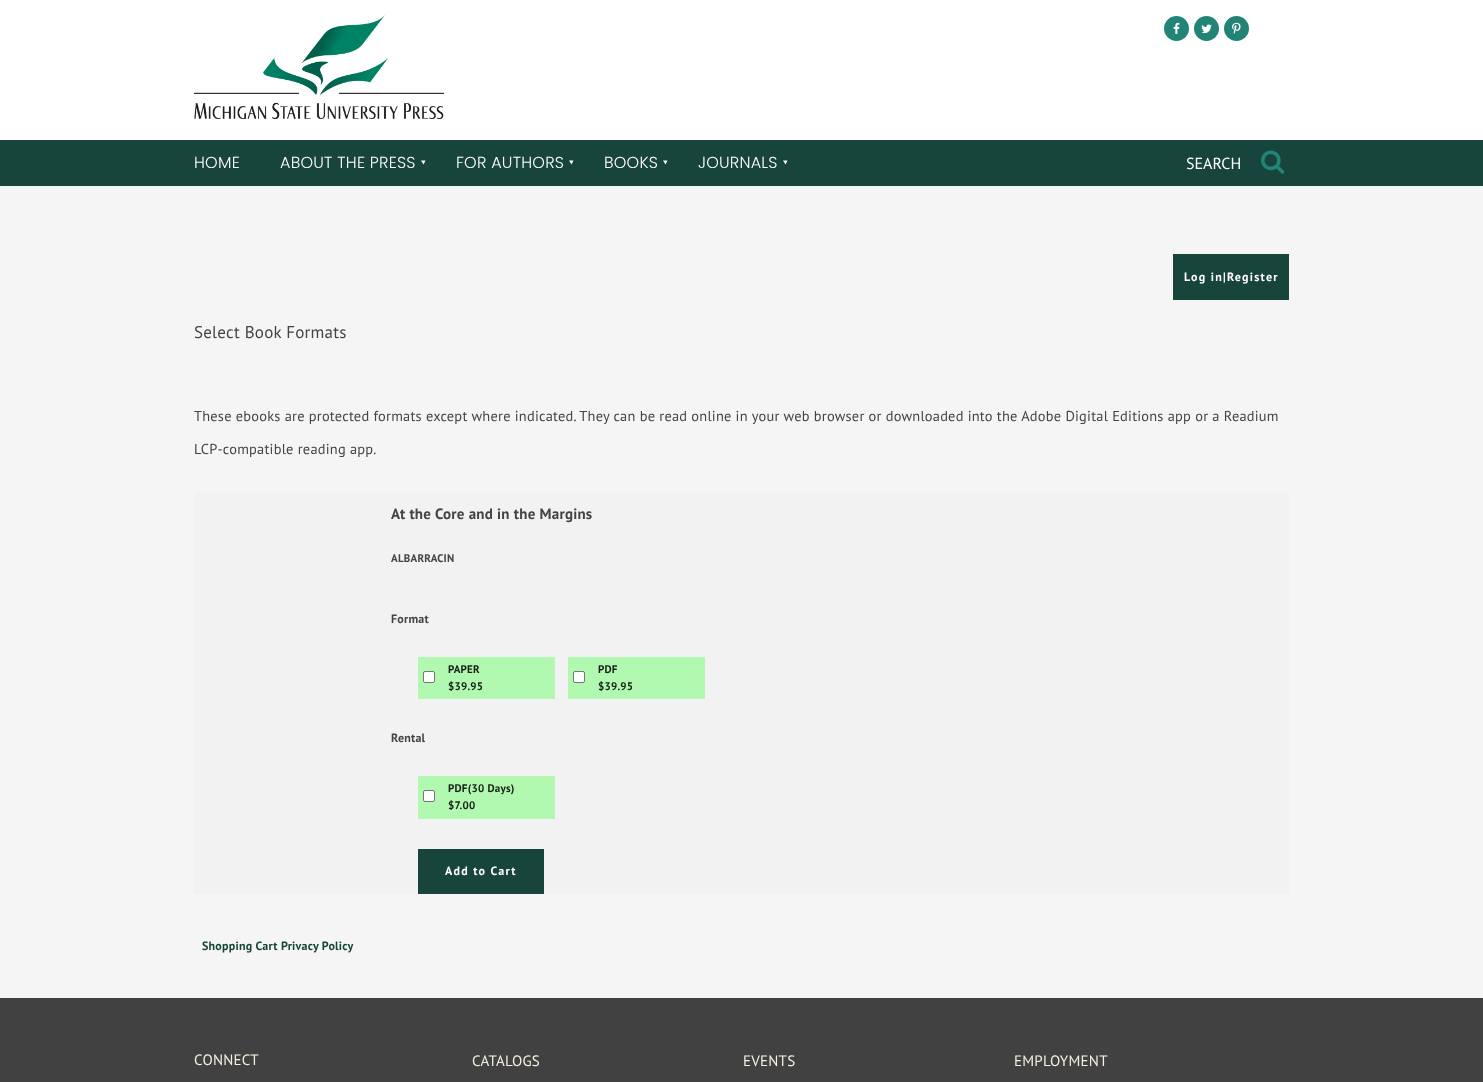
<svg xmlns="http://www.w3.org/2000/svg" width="1483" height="1082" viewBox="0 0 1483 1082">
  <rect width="100%" height="100%" fill="#fff"/>
  <image x="194" y="15" width="250" height="104" href="img/1.png"/>
  <circle cx="1176.5" cy="28.5" r="12.5" fill="#218476"/>
  <image x="1173" y="22" width="7" height="12" href="img/2.png"/>
  <circle cx="1206.5" cy="28.5" r="12.5" fill="#218476"/>
  <image x="1201" y="24" width="11" height="10" href="img/3.png"/>
  <circle cx="1236.5" cy="28.5" r="12.5" fill="#218476"/>
  <image x="1232" y="22" width="9" height="12" href="img/4.png"/>
  <path d="M0 140h1483v46H0z" fill="#18453b"/>
  <path d="M425.5 160.5L423.5 164.5L421 160.5Z" fill="#fff"/>
  <path d="M573.5 160.5L571.5 164.5L569 160.5Z" fill="#fff"/>
  <path d="M667.5 160.5L665.5 164.5L663 160.5Z" fill="#fff"/>
  <path d="M787.5 160.5L785.5 164.5L783 160.5Z" fill="#fff"/>
  <image x="1261" y="150" width="24" height="24" href="img/5.png"/>
  <path d="M0 186h1483v812H0z" fill="#f5f5f5"/>
  <path d="M1173 254h116v46H1173z" fill="#18453b"/>
  <path d="M194 492h1095v402H194z" fill="#f2f2f2"/>
  <path d="M418 657h137v42H418z" fill="#b1f9b1"/>
  <rect x="423.5" y="671.5" width="11" height="11" rx="1.5" fill="#fff" stroke="#767676"/>
  <path d="M568 657h137v42H568z" fill="#b1f9b1"/>
  <rect x="573.5" y="671.5" width="11" height="11" rx="1.5" fill="#fff" stroke="#767676"/>
  <path d="M418 776h137v43H418z" fill="#b1f9b1"/>
  <rect x="423.5" y="790.5" width="11" height="11" rx="1.5" fill="#fff" stroke="#767676"/>
  <path d="M418 849h126v45H418z" fill="#18453b"/>
  <path d="M0 998h1483v84H0z" fill="#414141"/>
  <g font-family="Poppins" font-size="16" font-weight="300" letter-spacing="0.23" fill="#fff">
    <text x="194" y="168">HOME</text>
    <text x="280" y="168">ABOUT THE PRESS</text>
    <text x="456" y="168">FOR AUTHORS</text>
    <text x="604" y="168">BOOKS</text>
    <text x="698" y="168">JOURNALS</text>
  </g>
  <text x="1186" y="169" font-family="PT Sans" font-size="16" fill="#fff">SEARCH</text>
  <text x="1184" y="281" font-family="PT Sans" font-size="12" font-weight="bold" letter-spacing="1.25" fill="#fff">Log in|Register</text>
  <text x="194" y="338" font-family="PT Sans" font-size="17" letter-spacing="0.23" fill="#444">Select Book Formats</text>
  <g font-family="PT Sans" font-size="14.4" letter-spacing="0.23" fill="#444">
    <text x="194" y="421">These ebooks are protected formats except where indicated. They can be read online in your web browser or downloaded into the Adobe Digital Editions app or a Readium</text>
    <text x="194" y="454">LCP-compatible reading app.</text>
  </g>
  <text x="391" y="519" font-family="PT Sans" font-size="15" font-weight="bold" letter-spacing="0.23" fill="#444">At the Core and in the Margins</text>
  <text x="391" y="562" font-family="PT Sans" font-size="11" font-weight="bold" letter-spacing="0.23" fill="#444">ALBARRACIN</text>
  <text x="391" y="623" font-family="PT Sans" font-size="12" font-weight="bold" letter-spacing="0.23" fill="#444">Format</text>
  <g font-family="PT Sans" font-size="11" font-weight="bold" letter-spacing="0.23" fill="#172017">
    <text x="448" y="673">PAPER</text>
    <text x="448" y="690">$39.95</text>
    <text x="598" y="673">PDF</text>
    <text x="598" y="690">$39.95</text>
  </g>
  <text x="391" y="742" font-family="PT Sans" font-size="12" font-weight="bold" letter-spacing="0.23" fill="#444">Rental</text>
  <g font-family="PT Sans" font-size="11" font-weight="bold" letter-spacing="0.23" fill="#172017">
    <text x="448" y="792">PDF(30 Days)</text>
    <text x="448" y="809">$7.00</text>
  </g>
  <text x="445" y="875" font-family="PT Sans" font-size="12" font-weight="bold" letter-spacing="1.25" fill="#fff">Add to Cart</text>
  <text x="202" y="950" font-family="PT Sans" font-size="12" font-weight="bold" letter-spacing="0.23" fill="#18453b">Shopping Cart Privacy Policy</text>
  <g font-family="PT Sans" font-size="15" letter-spacing="0.23" fill="#f4f0df">
    <text x="194" y="1065">CONNECT</text>
    <text x="472" y="1066">CATALOGS</text>
    <text x="743" y="1066">EVENTS</text>
    <text x="1014" y="1066">EMPLOYMENT</text>
  </g>
</svg>
